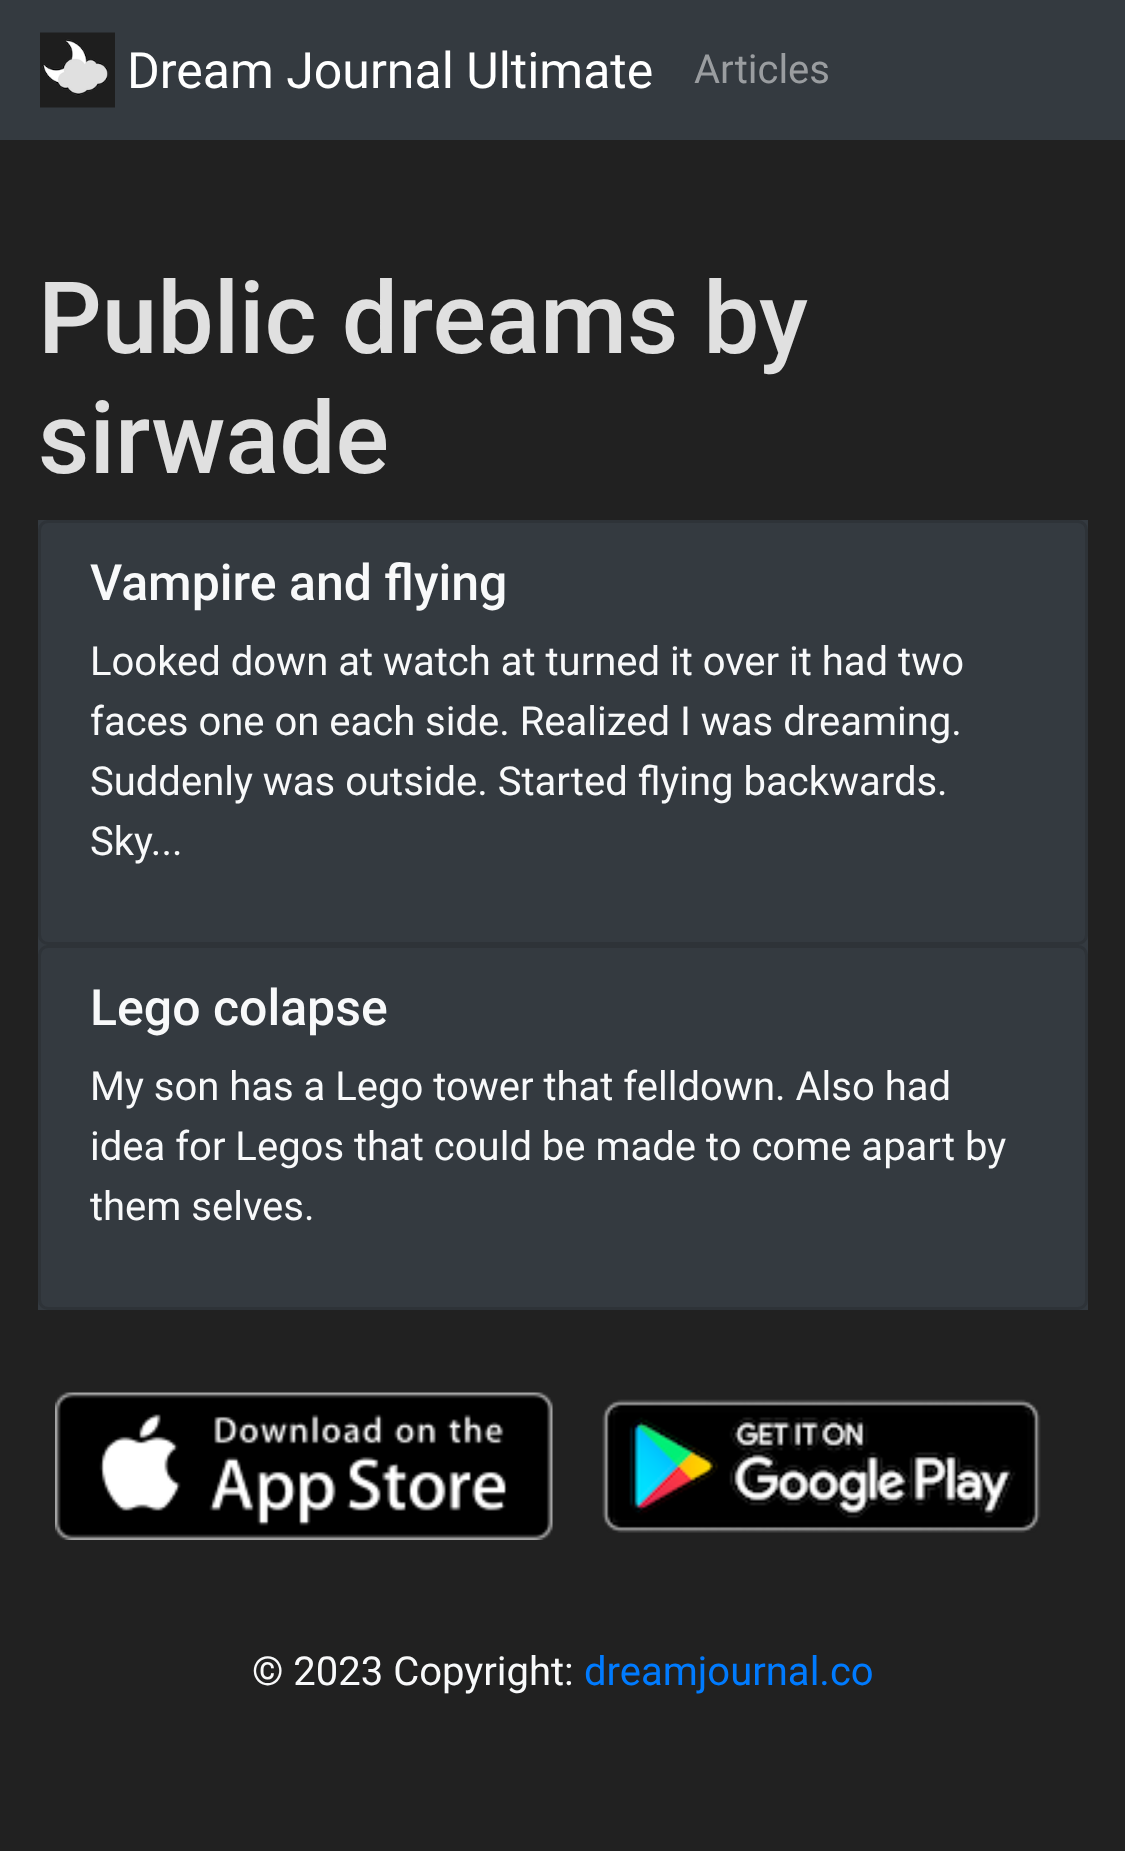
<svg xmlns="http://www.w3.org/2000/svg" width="1125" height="1851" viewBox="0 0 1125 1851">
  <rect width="100%" height="100%" fill="#212121"/>
  <path d="M0 0h1125v140H0z" fill="#343a40"/>
  <image x="40" y="32" width="75" height="76" href="img/1.png"/>
  <path d="M38 520h1050v790H38z" fill="#343a40"/>
  <rect x="39.5" y="521.5" width="1047" height="422" rx="8.5" fill="none" stroke="#2e3338" stroke-width="3"/>
  <rect x="39.5" y="946.5" width="1047" height="362" rx="8.5" fill="none" stroke="#2e3338" stroke-width="3"/>
  <image x="55" y="1392" width="498" height="148" href="img/2.png"/>
  <image x="602" y="1399" width="439" height="134" href="img/3.png"/>
  <text x="127" y="88" font-family="Roboto" font-size="50" fill="#fff">Dream Journal Ultimate</text>
  <text x="694" y="83" font-family="Roboto" font-size="40" fill="#9a9da0">Articles</text>
  <g font-family="Roboto" font-size="100" font-weight="500" fill="#e0e0e0">
    <text x="38" y="353">Public dreams by</text>
    <text x="38" y="473">sirwade</text>
  </g>
  <text x="90" y="600" font-family="Roboto" font-size="50" font-weight="500" fill="#f8f9fa">Vampire and flying</text>
  <g font-family="Roboto" font-size="40" fill="#f8f9fa">
    <text x="90" y="675">Looked down at watch at turned it over it had two</text>
    <text x="90" y="735">faces one on each side. Realized I was dreaming.</text>
    <text x="90" y="795">Suddenly was outside. Started flying backwards.</text>
    <text x="90" y="855">Sky...</text>
  </g>
  <text x="90" y="1025" font-family="Roboto" font-size="50" font-weight="500" fill="#f8f9fa">Lego colapse</text>
  <g font-family="Roboto" font-size="40" fill="#f8f9fa">
    <text x="90" y="1100">My son has a Lego tower that felldown. Also had</text>
    <text x="90" y="1160">idea for Legos that could be made to come apart by</text>
    <text x="90" y="1220">them selves.</text>
    <text x="252" y="1685">© 2023 Copyright:</text>
  </g>
  <text x="584" y="1685" font-family="Roboto" font-size="40" fill="#007bff">dreamjournal.co</text>
</svg>
